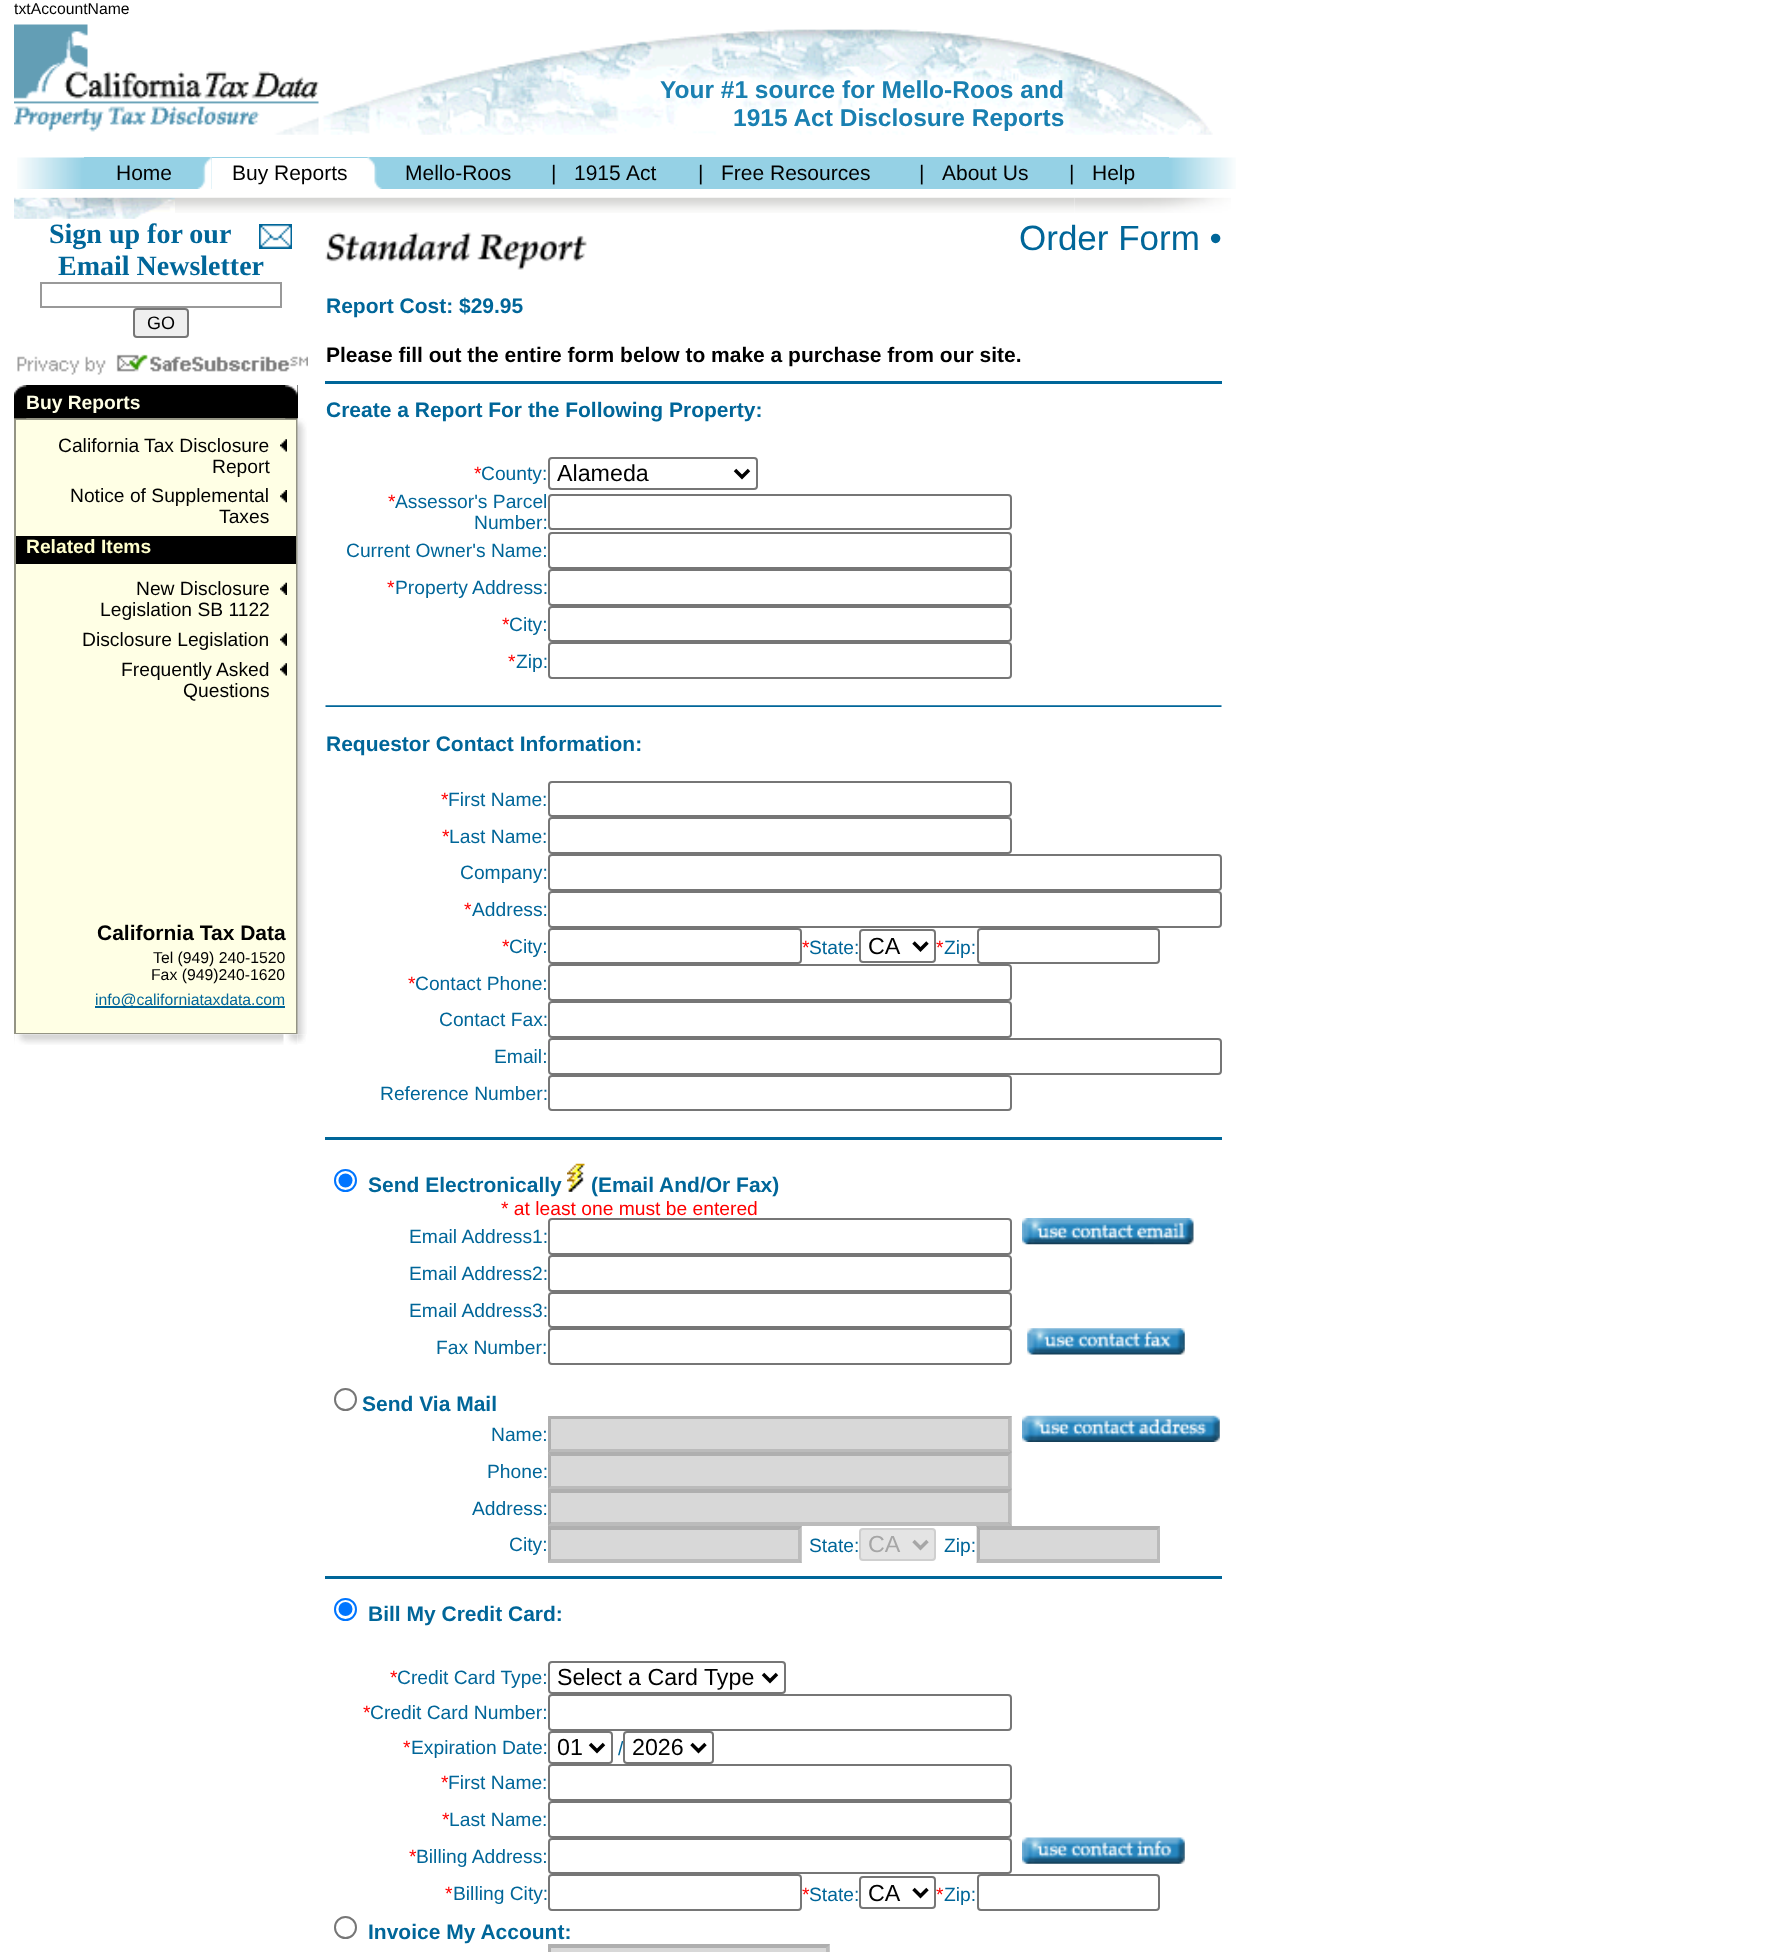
<svg xmlns="http://www.w3.org/2000/svg" width="1774" height="1952" viewBox="0 0 1774 1952">
  <rect width="100%" height="100%" fill="#fff"/>
  <image x="14" y="24" width="305" height="111" href="img/1.png"/>
  <image x="322" y="29" width="891" height="106" href="img/2.png"/>
  <image x="17" y="157" width="67" height="32" href="img/3.png"/>
  <path d="M84 157h1085v32H84z" fill="#95d1e5"/>
  <image x="197" y="157" width="15" height="32" href="img/4.png"/>
  <path d="M212 158h156v31H212z" fill="#fff"/>
  <image x="367" y="157" width="15" height="32" href="img/5.png"/>
  <image x="1169" y="157" width="67" height="32" href="img/6.png"/>
  <image x="14" y="197" width="161" height="22" href="img/7.png"/>
  <image x="175" y="197" width="900" height="16" href="img/8.png"/>
  <image x="1074" y="197" width="157" height="16" href="img/9.png"/>
  <path d="M259 224h33v25H259z" fill="#069"/>
  <image x="260" y="225" width="31" height="23" href="img/10.png"/>
  <path d="M41 283h240v24H41z" fill="none" stroke="#999" stroke-width="2"/>
  <rect x="134" y="309" width="54" height="28" rx="3" fill="#efefef" stroke="#767676" stroke-width="2"/>
  <image x="17" y="354" width="291" height="21" href="img/11.png"/>
  <path d="M26 385h272v33H26z" fill="#000"/>
  <path d="M14 418h284v616H14z" fill="#949484"/>
  <image x="14" y="385" width="13" height="34" href="img/12.png"/>
  <image x="297" y="418" width="10" height="617" href="img/18.png"/>
  <image x="285" y="385" width="13" height="34" href="img/13.png"/>
  <path d="M16 420h280v613H16z" fill="#ffffe5"/>
  <image x="280" y="439" width="7" height="13" href="img/14.png"/>
  <image x="280" y="490" width="7" height="13" href="img/15.png"/>
  <path d="M16 536h280v28H16z" fill="#000"/>
  <image x="280" y="582" width="7" height="13" href="img/16.png"/>
  <image x="280" y="633" width="7" height="13" href="img/17.png"/>
  <image x="280" y="663" width="7" height="13" href="img/14.png"/>
  <path d="M95 1006h190v2H95z" fill="#069"/>
  <image x="14" y="1034" width="284" height="11" href="img/19.png"/>
  <image x="297" y="1034" width="9" height="10" href="img/20.png"/>
  <image x="325" y="232" width="262" height="38" href="img/21.png"/>
  <path d="M325 381h897v3H325z" fill="#069"/>
  <rect x="549" y="458" width="208" height="31" rx="3" fill="none" stroke="#767676" stroke-width="2"/>
  <path d="M735 470L742 477L749 470" fill="none" stroke="#000" stroke-width="3.5"/>
  <rect x="549" y="495" width="462" height="34" rx="3" fill="none" stroke="#767676" stroke-width="2"/>
  <rect x="549" y="533" width="462" height="35" rx="3" fill="none" stroke="#767676" stroke-width="2"/>
  <rect x="549" y="570" width="462" height="35" rx="3" fill="none" stroke="#767676" stroke-width="2"/>
  <rect x="549" y="607" width="462" height="34" rx="3" fill="none" stroke="#767676" stroke-width="2"/>
  <rect x="549" y="643" width="462" height="35" rx="3" fill="none" stroke="#767676" stroke-width="2"/>
  <image x="325" y="705" width="897" height="2" href="img/22.png"/>
  <rect x="549" y="782" width="462" height="34" rx="3" fill="none" stroke="#767676" stroke-width="2"/>
  <rect x="549" y="818" width="462" height="35" rx="3" fill="none" stroke="#767676" stroke-width="2"/>
  <rect x="549" y="855" width="672" height="35" rx="3" fill="none" stroke="#767676" stroke-width="2"/>
  <rect x="549" y="892" width="672" height="35" rx="3" fill="none" stroke="#767676" stroke-width="2"/>
  <rect x="549" y="929" width="252" height="34" rx="3" fill="none" stroke="#767676" stroke-width="2"/>
  <rect x="860" y="930" width="75" height="32" rx="3" fill="none" stroke="#767676" stroke-width="2"/>
  <path d="M913.5 942.5L920.5 949.5L927.5 942.5" fill="none" stroke="#000" stroke-width="3.5"/>
  <rect x="978" y="929" width="181" height="34" rx="3" fill="none" stroke="#767676" stroke-width="2"/>
  <rect x="549" y="965" width="462" height="35" rx="3" fill="none" stroke="#767676" stroke-width="2"/>
  <rect x="549" y="1002" width="462" height="35" rx="3" fill="none" stroke="#767676" stroke-width="2"/>
  <rect x="549" y="1039" width="672" height="35" rx="3" fill="none" stroke="#767676" stroke-width="2"/>
  <rect x="549" y="1076" width="462" height="34" rx="3" fill="none" stroke="#767676" stroke-width="2"/>
  <path d="M325 1137h897v3H325z" fill="#069"/>
  <circle cx="345.5" cy="1180.5" r="10.5" fill="none" stroke="#0075ff" stroke-width="2"/>
  <circle cx="345.5" cy="1180.5" r="7" fill="#0075ff"/>
  <image x="567" y="1163" width="18" height="29" href="img/23.png"/>
  <rect x="549" y="1219" width="462" height="35" rx="3" fill="none" stroke="#767676" stroke-width="2"/>
  <image x="1022" y="1218" width="172" height="27" href="img/24.png"/>
  <rect x="549" y="1256" width="462" height="35" rx="3" fill="none" stroke="#767676" stroke-width="2"/>
  <rect x="549" y="1293" width="462" height="34" rx="3" fill="none" stroke="#767676" stroke-width="2"/>
  <rect x="549" y="1329" width="462" height="35" rx="3" fill="none" stroke="#767676" stroke-width="2"/>
  <image x="1027" y="1328" width="158" height="27" href="img/25.png"/>
  <circle cx="345.5" cy="1399.5" r="10.5" fill="none" stroke="#767676" stroke-width="2"/>
  <path d="M548 1416h464v110H548z" fill="#d8d8d8"/>
  <path d="M548 1416H1012L1008 1419H551Z" fill="#afafaf"/>
  <path d="M1011.5 1416V1452.5L1008 1449V1419Z" fill="#7676764d"/>
  <path d="M1012 1452H548L551 1449H1008Z" fill="#7676764d"/>
  <path d="M548 1452.5V1416L551 1419V1449Z" fill="#4f4f4f4d"/>
  <image x="1022" y="1415" width="198" height="27" href="img/26.png"/>
  <path d="M548 1452H1012L1008 1456H551Z" fill="#4f4f4f4d"/>
  <path d="M1011.5 1452.5V1489L1008 1486V1456Z" fill="#7676764d"/>
  <path d="M1012 1489H548L551 1486H1008Z" fill="#7676764d"/>
  <path d="M548 1489V1452.5L551 1456V1486Z" fill="#4f4f4f4d"/>
  <path d="M548 1489H1012L1008 1493H551Z" fill="#afafaf"/>
  <path d="M1011.5 1489V1526L1008 1522.5V1493Z" fill="#7676764d"/>
  <path d="M1012 1526H548L551 1522H1008Z" fill="#7676764d"/>
  <path d="M548 1526V1489L551 1493V1522.5Z" fill="#4f4f4f4d"/>
  <path d="M548 1526h254v37H548z" fill="#d8d8d8"/>
  <path d="M548 1526H802L798 1530H551Z" fill="#afafaf"/>
  <path d="M801.5 1526V1563L798 1559V1529.5Z" fill="#7676764d"/>
  <path d="M802 1563H548L551 1559H798Z" fill="#7676764d"/>
  <path d="M548 1563V1526L551 1529.5V1559Z" fill="#4f4f4f4d"/>
  <rect x="859" y="1528" width="77" height="33" rx="4" fill="#e4e4e4"/>
  <rect x="860" y="1529" width="75" height="31" rx="3" fill="none" stroke="#9f9f9f4d" stroke-width="2"/>
  <path d="M913.5 1541L920.5 1548L927.5 1541" fill="none" stroke="#a6a6a6" stroke-width="3.5"/>
  <path d="M977 1526h183v37H977z" fill="#d8d8d8"/>
  <path d="M976 1526H1160L1157 1530H980Z" fill="#afafaf"/>
  <path d="M1160 1526V1563L1157 1559V1529.5Z" fill="#7676764d"/>
  <path d="M1160 1563H976L980 1559H1157Z" fill="#7676764d"/>
  <path d="M976.5 1563V1526L980 1529.5V1559Z" fill="#4f4f4f4d"/>
  <path d="M325 1576h897v3H325z" fill="#069"/>
  <circle cx="345.5" cy="1609.5" r="10.5" fill="none" stroke="#0075ff" stroke-width="2"/>
  <circle cx="345.5" cy="1609" r="7" fill="#0075ff"/>
  <rect x="549" y="1662" width="236" height="31" rx="3" fill="none" stroke="#767676" stroke-width="2"/>
  <path d="M763 1674L770 1681L777 1674" fill="none" stroke="#000" stroke-width="3.5"/>
  <rect x="549" y="1695" width="462" height="35" rx="3" fill="none" stroke="#767676" stroke-width="2"/>
  <rect x="549" y="1732" width="63" height="31" rx="3" fill="none" stroke="#767676" stroke-width="2"/>
  <path d="M590 1744L597 1751L604 1744" fill="none" stroke="#000" stroke-width="3.5"/>
  <rect x="549" y="1765" width="462" height="35" rx="3" fill="none" stroke="#767676" stroke-width="2"/>
  <rect x="549" y="1802" width="462" height="35" rx="3" fill="none" stroke="#767676" stroke-width="2"/>
  <rect x="549" y="1839" width="462" height="34" rx="3" fill="none" stroke="#767676" stroke-width="2"/>
  <image x="1022" y="1837" width="163" height="27" href="img/27.png"/>
  <rect x="549" y="1875" width="252" height="35" rx="3" fill="none" stroke="#767676" stroke-width="2"/>
  <rect x="860" y="1877" width="75" height="31" rx="3" fill="none" stroke="#767676" stroke-width="2"/>
  <path d="M913.5 1889L920.5 1896L927.5 1889" fill="none" stroke="#000" stroke-width="3.5"/>
  <rect x="978" y="1875" width="181" height="35" rx="3" fill="none" stroke="#767676" stroke-width="2"/>
  <circle cx="345.5" cy="1927.5" r="10.5" fill="none" stroke="#767676" stroke-width="2"/>
  <path d="M548 1944h282v8H548z" fill="#d8d8d8"/>
  <path d="M548 1944H830L826 1948H551Z" fill="#afafaf"/>
  <path d="M829.5 1944V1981L826 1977.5V1948Z" fill="#7676764d"/>
  <path d="M548 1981V1944L551 1948V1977.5Z" fill="#4f4f4f4d"/>
  <text x="14" y="14" font-family="Liberation Sans" font-size="15.75" fill="#000">txtAccountName</text>
  <g font-family="Liberation Sans" font-size="24.5" font-weight="bold" fill="#1a80b1">
    <text x="660" y="98">Your #1 source for Mello-Roos and</text>
    <text x="733" y="126">1915 Act Disclosure Reports</text>
  </g>
  <g font-family="Liberation Sans" font-size="21" fill="#000">
    <text x="116" y="180">Home</text>
    <text x="232" y="180">Buy Reports</text>
    <text x="405" y="180">Mello-Roos</text>
    <text x="551" y="180">|</text>
    <text x="574" y="180">1915</text>
    <text x="626" y="180">Act</text>
    <text x="698" y="180">|</text>
    <text x="721" y="180">Free Resources</text>
    <text x="919" y="180">|</text>
    <text x="942" y="180">About Us</text>
    <text x="1069" y="180">|</text>
    <text x="1092" y="180">Help</text>
  </g>
  <g font-family="Liberation Serif" font-size="28" font-weight="bold" fill="#069">
    <text x="49" y="243">Sign up for our</text>
    <text x="58" y="275">Email Newsletter</text>
  </g>
  <text x="147" y="329" font-family="Liberation Sans" font-size="18" fill="#000">GO</text>
  <text x="26" y="409" font-family="Liberation Sans" font-size="19.25" font-weight="bold" fill="#ffffe5">Buy Reports</text>
  <g font-family="Liberation Sans" font-size="19.25" fill="#000">
    <text x="58" y="452">California</text>
    <text x="144" y="452">Tax Disclosure</text>
    <text x="212" y="473">Report</text>
    <text x="70" y="502">Notice of Supplemental</text>
    <text x="219" y="523">Taxes</text>
  </g>
  <text x="26" y="553" font-family="Liberation Sans" font-size="19.25" font-weight="bold" fill="#ffc">Related Items</text>
  <g font-family="Liberation Sans" font-size="19.25" fill="#000">
    <text x="136" y="595">New Disclosure</text>
    <text x="100" y="616">Legislation SB 1122</text>
    <text x="82" y="646">Disclosure Legislation</text>
    <text x="121" y="676">Frequently</text>
    <text x="216" y="676">Asked</text>
    <text x="183" y="697">Questions</text>
  </g>
  <text x="97" y="940" font-family="Liberation Sans" font-size="21" font-weight="bold" fill="#000">California Tax Data</text>
  <g font-family="Liberation Sans" font-size="15.75" fill="#000">
    <text x="153" y="963">Tel (949) 240-1520</text>
    <text x="151" y="980">Fax (949)240-1620</text>
  </g>
  <text x="95" y="1005" font-family="Liberation Sans" font-size="15.75" fill="#069">info@californiataxdata.com</text>
  <text x="1019" y="250" font-family="Liberation Sans" font-size="35" fill="#069">Order Form •</text>
  <text x="326" y="313" font-family="Liberation Sans" font-size="21" font-weight="bold" fill="#069">Report Cost: $29.95</text>
  <text x="326" y="362" font-family="Liberation Sans" font-size="21" font-weight="bold" fill="#000">Please fill out the entire form below to make a purchase from our site.</text>
  <text x="326" y="417" font-family="Liberation Sans" font-size="21" font-weight="bold" fill="#069">Create a Report For the Following Property:</text>
  <text x="474" y="480" font-family="Liberation Sans" font-size="19.25" fill="#f00">*</text>
  <text x="481" y="480" font-family="Liberation Sans" font-size="19.25" fill="#069">County:</text>
  <text x="557" y="481" font-family="Liberation Sans" font-size="23.25" fill="#000">Alameda</text>
  <text x="388" y="508" font-family="Liberation Sans" font-size="19.25" fill="#f00">*</text>
  <g font-family="Liberation Sans" font-size="19.25" fill="#069">
    <text x="395" y="508">Assessor's Parcel</text>
    <text x="474" y="529">Number:</text>
    <text x="346" y="557">Current Owner's Name:</text>
  </g>
  <text x="387" y="594" font-family="Liberation Sans" font-size="19.25" fill="#f00">*</text>
  <text x="395" y="594" font-family="Liberation Sans" font-size="19.25" fill="#069">Property Address:</text>
  <text x="502" y="631" font-family="Liberation Sans" font-size="19.25" fill="#f00">*</text>
  <text x="509" y="631" font-family="Liberation Sans" font-size="19.25" fill="#069">City:</text>
  <text x="508" y="668" font-family="Liberation Sans" font-size="19.25" fill="#f00">*</text>
  <text x="516" y="668" font-family="Liberation Sans" font-size="19.25" fill="#069">Zip:</text>
  <text x="326" y="751" font-family="Liberation Sans" font-size="21" font-weight="bold" fill="#069">Requestor Contact Information:</text>
  <text x="441" y="806" font-family="Liberation Sans" font-size="19.25" fill="#f00">*</text>
  <text x="448" y="806" font-family="Liberation Sans" font-size="19.25" fill="#069">First Name:</text>
  <text x="442" y="843" font-family="Liberation Sans" font-size="19.25" fill="#f00">*</text>
  <g font-family="Liberation Sans" font-size="19.25" fill="#069">
    <text x="449" y="843">Last Name:</text>
    <text x="460" y="879">Company:</text>
  </g>
  <text x="464" y="916" font-family="Liberation Sans" font-size="19.25" fill="#f00">*</text>
  <text x="472" y="916" font-family="Liberation Sans" font-size="19.25" fill="#069">Address:</text>
  <text x="502" y="953" font-family="Liberation Sans" font-size="19.25" fill="#f00">*</text>
  <text x="509" y="953" font-family="Liberation Sans" font-size="19.25" fill="#069">City:</text>
  <text x="802" y="954" font-family="Liberation Sans" font-size="19.25" fill="#f00">*</text>
  <text x="809" y="954" font-family="Liberation Sans" font-size="19.25" fill="#069">State:</text>
  <text x="868" y="954" font-family="Liberation Sans" font-size="23.25" fill="#000">CA</text>
  <text x="936" y="954" font-family="Liberation Sans" font-size="19.25" fill="#f00">*</text>
  <text x="944" y="954" font-family="Liberation Sans" font-size="19.25" fill="#069">Zip:</text>
  <text x="408" y="990" font-family="Liberation Sans" font-size="19.25" fill="#f00">*</text>
  <g font-family="Liberation Sans" font-size="19.25" fill="#069">
    <text x="415" y="990">Contact Phone:</text>
    <text x="439" y="1026">Contact Fax:</text>
    <text x="494" y="1063">Email:</text>
    <text x="380" y="1100">Reference Number:</text>
  </g>
  <g font-family="Liberation Sans" font-size="21" font-weight="bold" fill="#069">
    <text x="368" y="1192">Send Electronically</text>
    <text x="591" y="1192">(Email And/Or Fax)</text>
  </g>
  <text x="501" y="1215" font-family="Liberation Sans" font-size="19.25" fill="#f00">* at least one must be entered</text>
  <g font-family="Liberation Sans" font-size="19.25" fill="#069">
    <text x="409" y="1243">Email Address1:</text>
    <text x="409" y="1280">Email Address2:</text>
    <text x="409" y="1317">Email Address3:</text>
    <text x="436" y="1354">Fax Number:</text>
  </g>
  <text x="362" y="1411" font-family="Liberation Sans" font-size="21" font-weight="bold" fill="#069">Send Via Mail</text>
  <g font-family="Liberation Sans" font-size="19.25" fill="#069">
    <text x="491" y="1441">Name:</text>
    <text x="487" y="1478">Phone:</text>
    <text x="472" y="1515">Address:</text>
    <text x="509" y="1551">City:</text>
    <text x="809" y="1552">State:</text>
  </g>
  <text x="868" y="1552" font-family="Liberation Sans" font-size="23.25" fill="#a6a6a6">CA</text>
  <text x="944" y="1552" font-family="Liberation Sans" font-size="19.25" fill="#069">Zip:</text>
  <text x="368" y="1621" font-family="Liberation Sans" font-size="21" font-weight="bold" fill="#069">Bill My Credit Card:</text>
  <text x="390" y="1684" font-family="Liberation Sans" font-size="19.25" fill="#f00">*</text>
  <text x="397" y="1684" font-family="Liberation Sans" font-size="19.25" fill="#069">Credit Card Type:</text>
  <text x="557" y="1685" font-family="Liberation Sans" font-size="23.25" fill="#000">Select a Card Type</text>
  <text x="363" y="1719" font-family="Liberation Sans" font-size="19.25" fill="#f00">*</text>
  <text x="370" y="1719" font-family="Liberation Sans" font-size="19.25" fill="#069">Credit Card Number:</text>
  <text x="403" y="1754" font-family="Liberation Sans" font-size="19.25" fill="#f00">*</text>
  <text x="411" y="1754" font-family="Liberation Sans" font-size="19.25" fill="#069">Expiration Date:</text>
  <text x="557" y="1755" font-family="Liberation Sans" font-size="23.25" fill="#000">01</text>
  <text x="618" y="1755" font-family="Liberation Sans" font-size="19.25" fill="#069">/</text>
  <rect x="624" y="1732" width="89" height="31" rx="3" fill="#fff" stroke="#767676" stroke-width="2"/>
  <path d="M691.5 1744L698.5 1751L705.5 1744" fill="none" stroke="#000" stroke-width="3.5"/>
  <text x="632" y="1755" font-family="Liberation Sans" font-size="23.25" fill="#000">2026</text>
  <text x="441" y="1789" font-family="Liberation Sans" font-size="19.25" fill="#f00">*</text>
  <text x="448" y="1789" font-family="Liberation Sans" font-size="19.25" fill="#069">First Name:</text>
  <text x="442" y="1826" font-family="Liberation Sans" font-size="19.25" fill="#f00">*</text>
  <text x="449" y="1826" font-family="Liberation Sans" font-size="19.25" fill="#069">Last Name:</text>
  <text x="409" y="1863" font-family="Liberation Sans" font-size="19.25" fill="#f00">*</text>
  <text x="416" y="1863" font-family="Liberation Sans" font-size="19.25" fill="#069">Billing Address:</text>
  <text x="445" y="1900" font-family="Liberation Sans" font-size="19.25" fill="#f00">*</text>
  <text x="453" y="1900" font-family="Liberation Sans" font-size="19.25" fill="#069">Billing City:</text>
  <text x="802" y="1901" font-family="Liberation Sans" font-size="19.25" fill="#f00">*</text>
  <text x="809" y="1901" font-family="Liberation Sans" font-size="19.25" fill="#069">State:</text>
  <text x="868" y="1901" font-family="Liberation Sans" font-size="23.25" fill="#000">CA</text>
  <text x="936" y="1901" font-family="Liberation Sans" font-size="19.25" fill="#f00">*</text>
  <text x="944" y="1901" font-family="Liberation Sans" font-size="19.25" fill="#069">Zip:</text>
  <text x="368" y="1939" font-family="Liberation Sans" font-size="21" font-weight="bold" fill="#069">Invoice My Account:</text>
</svg>
